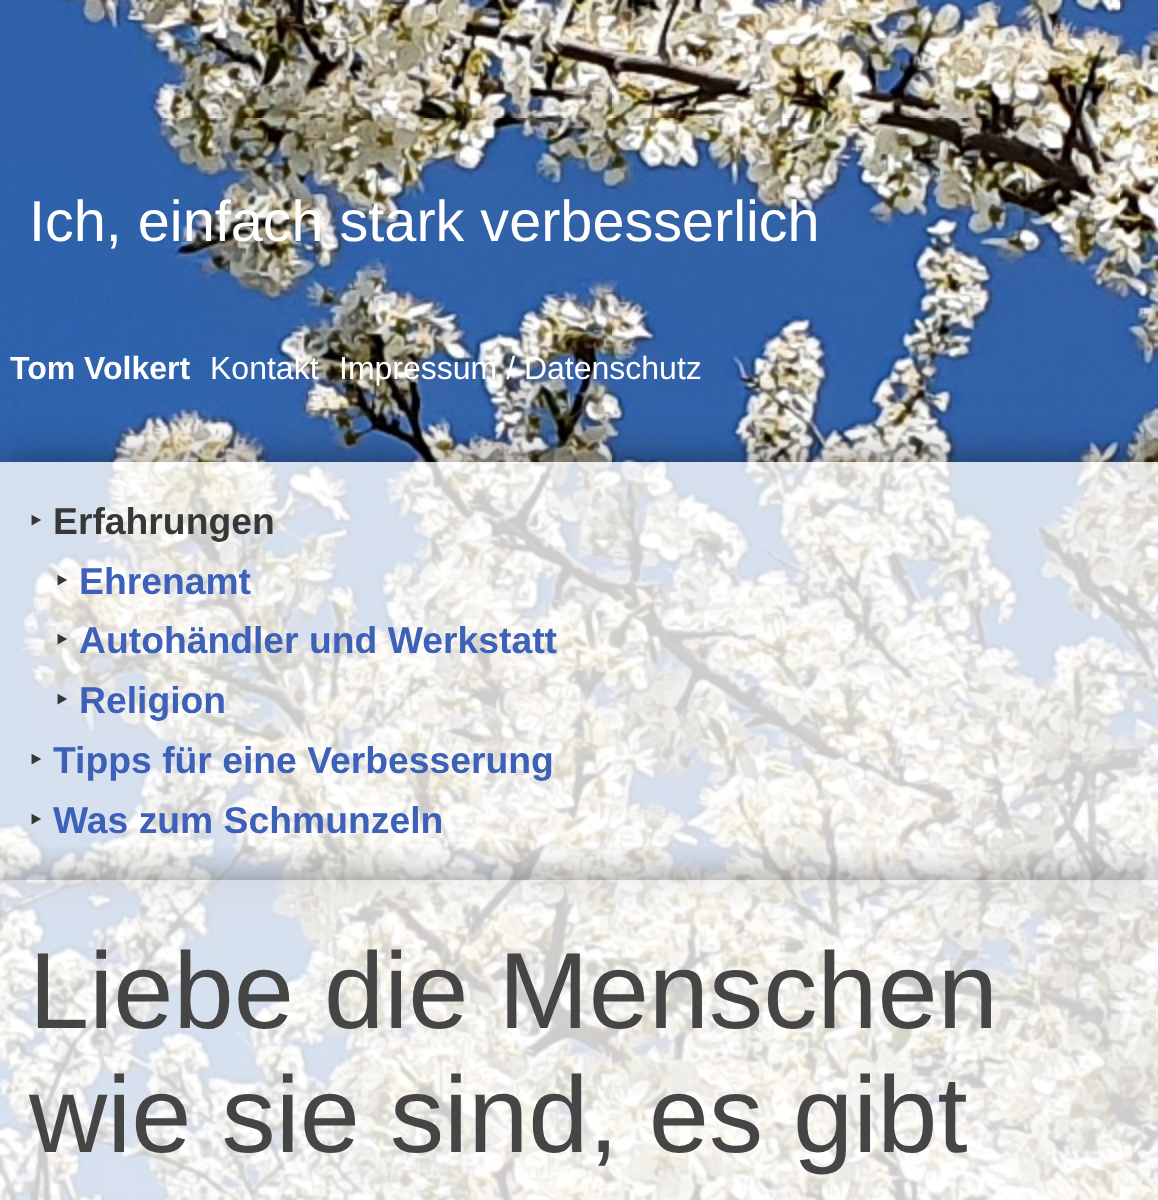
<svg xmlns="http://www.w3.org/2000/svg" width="1158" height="1200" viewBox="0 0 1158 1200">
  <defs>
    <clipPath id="clip1"><path d="M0 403H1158V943H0ZM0 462H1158V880H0Z" clip-rule="evenodd"/></clipPath>
    <clipPath id="clip2"><path d="M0 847h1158v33H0z"/></clipPath>
  </defs>
  <rect width="100%" height="100%" fill="#fff"/>
  <image x="0" y="0" width="1158" height="1200" href="img/1.png"/>
  <g clip-path="url(#clip1)">
    <path d="M2 464h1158v418H2z" fill="#00000080" filter="blur(20px)"/>
  </g>
  <path d="M0 462h1158v418H0z" fill="#ffffffcc"/>
  <g clip-path="url(#clip2)">
    <path d="M2 882h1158v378H2z" fill="#00000080" filter="blur(20px)"/>
  </g>
  <path d="M0 880h1158v320H0z" fill="#ffffffcc"/>
  <text x="29" y="241" font-family="Liberation Sans" font-size="57.6" fill="#fff">Ich, einfach stark verbesserlich</text>
  <text x="10" y="379" font-family="Liberation Sans" font-size="32" font-weight="bold" fill="#fff">Tom Volkert</text>
  <g font-family="Liberation Sans" font-size="32" fill="#fff">
    <text x="210" y="379">Kontakt</text>
    <text x="339" y="379">Impressum / Datenschutz</text>
  </g>
  <text x="29" y="534" font-family="Noto Sans" font-size="37.3" fill="#373737">‣</text>
  <text x="53" y="534" font-family="Liberation Sans" font-size="37.3" font-weight="bold" fill="#373737">Erfahrungen</text>
  <text x="55" y="594" font-family="Noto Sans" font-size="37.3" fill="#373737">‣</text>
  <text x="79" y="594" font-family="Liberation Sans" font-size="37.3" font-weight="bold" fill="#3d61b9">Ehrenamt</text>
  <text x="55" y="653" font-family="Noto Sans" font-size="37.3" fill="#373737">‣</text>
  <text x="79" y="653" font-family="Liberation Sans" font-size="37.3" font-weight="bold" fill="#3d61b9">Autohändler und Werkstatt</text>
  <text x="55" y="713" font-family="Noto Sans" font-size="37.3" fill="#373737">‣</text>
  <text x="79" y="713" font-family="Liberation Sans" font-size="37.3" font-weight="bold" fill="#3d61b9">Religion</text>
  <text x="29" y="773" font-family="Noto Sans" font-size="37.3" fill="#373737">‣</text>
  <text x="53" y="773" font-family="Liberation Sans" font-size="37.3" font-weight="bold" fill="#3d61b9">Tipps für eine Verbesserung</text>
  <text x="29" y="833" font-family="Noto Sans" font-size="37.3" fill="#373737">‣</text>
  <text x="53" y="833" font-family="Liberation Sans" font-size="37.3" font-weight="bold" fill="#3d61b9">Was zum Schmunzeln</text>
  <g font-family="Liberation Sans" font-size="108.25" fill="#454545">
    <text x="29" y="1028">Liebe die Menschen</text>
    <text x="29" y="1152">wie sie sind, es gibt</text>
  </g>
</svg>
